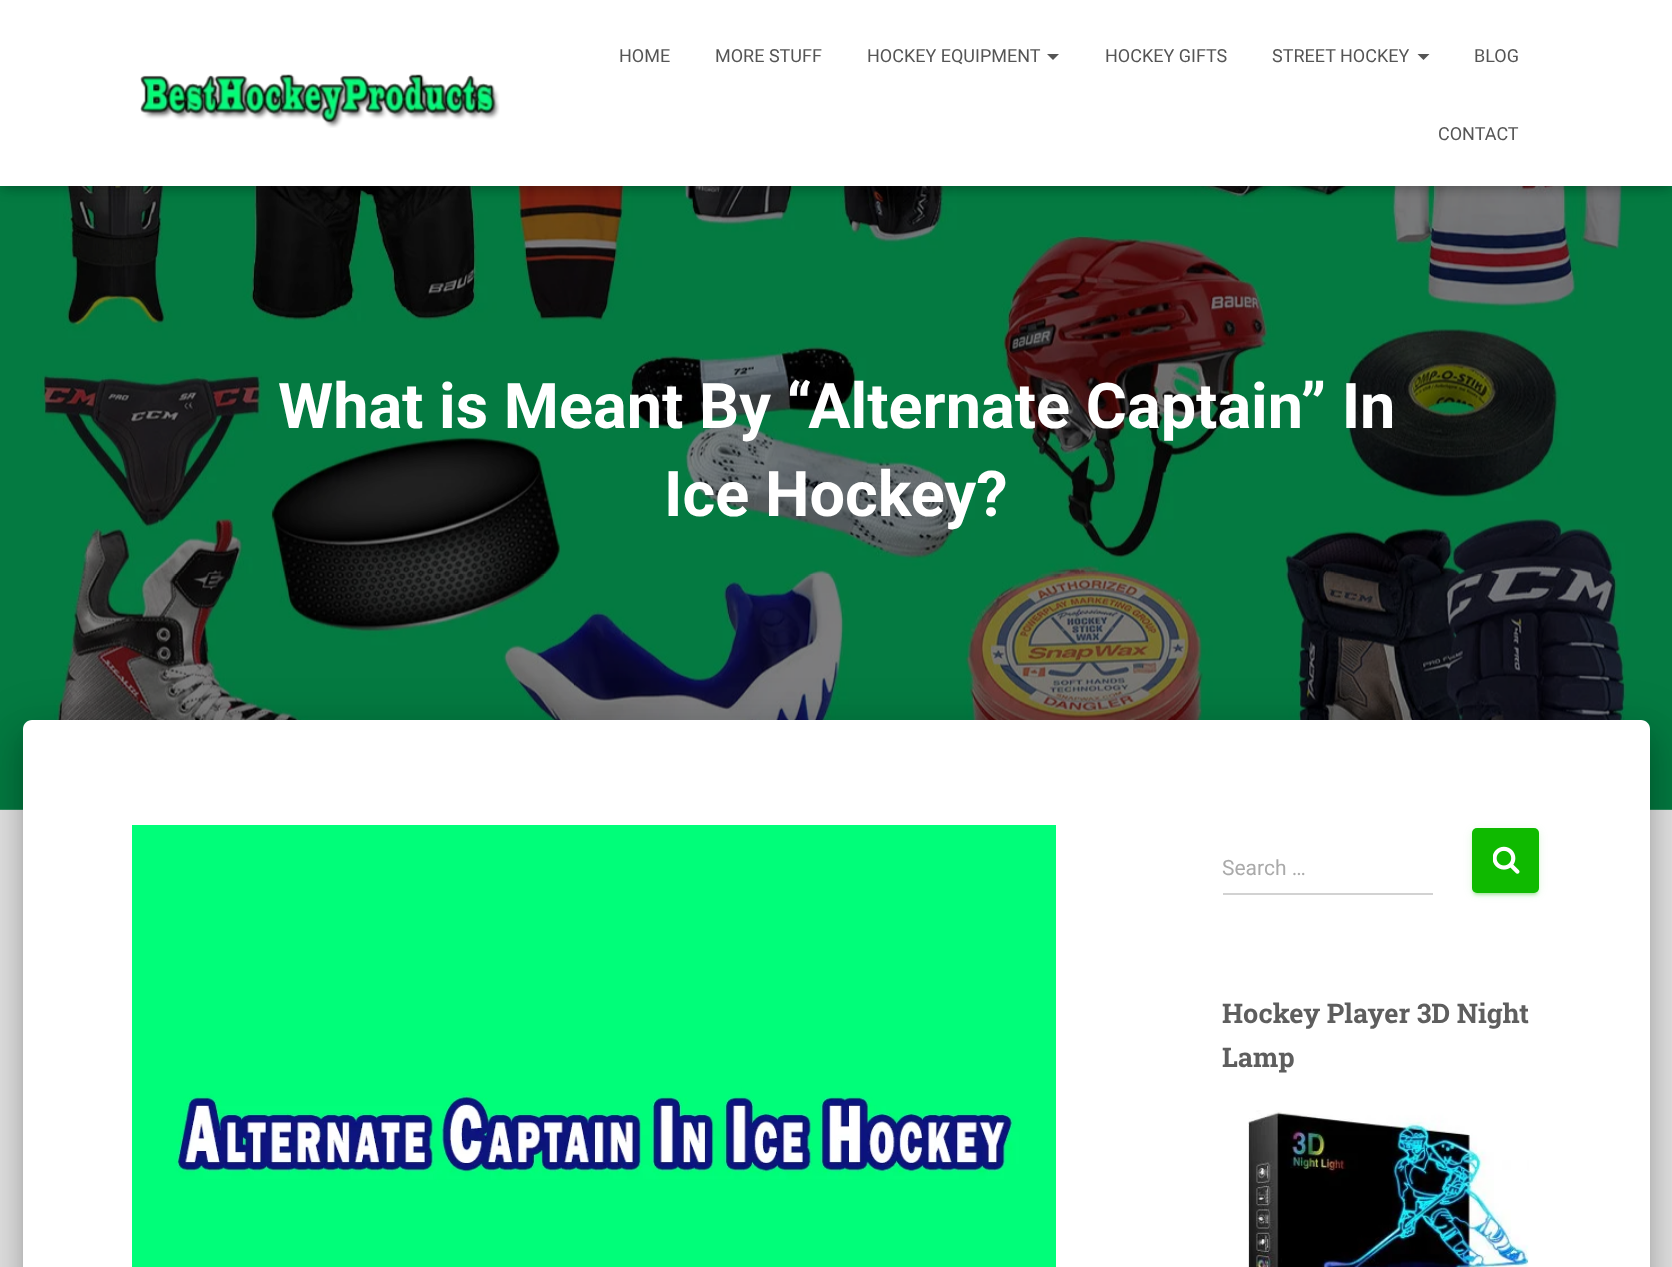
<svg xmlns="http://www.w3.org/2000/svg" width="1672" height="1267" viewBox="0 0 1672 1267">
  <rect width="100%" height="100%" fill="#e5e5e5"/>
  <image x="0" y="186" width="1672" height="624" href="img/2.png"/>
  <path d="M3 9h1667v180H3z" fill="#0000001a" filter="blur(4px)"/>
  <path d="M0 2h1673v186H0z" fill="#0000001f" filter="blur(7.5px)"/>
  <path d="M9 11h1655v168H9z" fill="#0000006b" filter="blur(7.5px)"/>
  <path d="M0 0h1672v186H0z" fill="#fff"/>
  <image x="140" y="74" width="360" height="54" href="img/1.png"/>
  <path d="M1047 54H1059L1053 60Z" fill="#555"/>
  <path d="M1417.5 54H1429.5L1423.5 60Z" fill="#555"/>
  <rect x="30" y="740" width="1613" height="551" rx="1.5" fill="#00000033" filter="blur(7.5px)"/>
  <rect x="15" y="722" width="1643" height="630" rx="17" fill="#0000001f" filter="blur(22.5px)"/>
  <rect x="20" y="741" width="1633" height="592" rx="12" fill="#00000024" filter="blur(18px)"/>
  <path d="M32 720H1641C1646 720 1650 724 1650 729V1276H23V729C23 724 27 720 32 720Z" fill="#fff"/>
  <image x="132" y="825" width="924" height="442" href="img/3.png"/>
  <path d="M1223 893h210v2H1223z" fill="#d2d2d2"/>
  <rect x="1472" y="830" width="67" height="64" rx="5" fill="#0fba001f" filter="blur(4px)"/>
  <rect x="1475" y="836" width="61" height="58" rx="1.5" fill="#0fba0033" filter="blur(1px)"/>
  <rect x="1472" y="831" width="67" height="65" rx="5" fill="#0fba0024" filter="blur(1.5px)"/>
  <rect x="1472" y="828" width="67" height="65" rx="5" fill="#0fba00"/>
  <image x="1493" y="846" width="27" height="28" href="img/4.png"/>
  <image x="1248" y="1110" width="281" height="157" href="img/5.png"/>
  <g font-family="Roboto" font-size="18" fill="#555">
    <text x="619" y="62">HOME</text>
    <text x="715" y="62">MORE STUFF</text>
    <text x="867" y="62">HOCKEY EQUIPMENT</text>
    <text x="1105" y="62">HOCKEY GIFTS</text>
    <text x="1272" y="62">STREET HOCKEY</text>
    <text x="1474" y="62">BLOG</text>
    <text x="1438" y="140">CONTACT</text>
  </g>
  <g font-family="Roboto" font-size="63" font-weight="bold" fill="#fff">
    <text x="278" y="428">What is Meant By “Alternate Captain” In</text>
    <text x="664" y="516">Ice Hockey?</text>
  </g>
  <text x="1222" y="875" font-family="Roboto" font-size="21" fill="#aaa">Search …</text>
  <g font-family="Roboto Slab" font-size="27" font-weight="bold" fill="#5e5e5e">
    <text x="1222" y="1023">Hockey Player 3D Night</text>
    <text x="1222" y="1067">Lamp</text>
  </g>
</svg>
